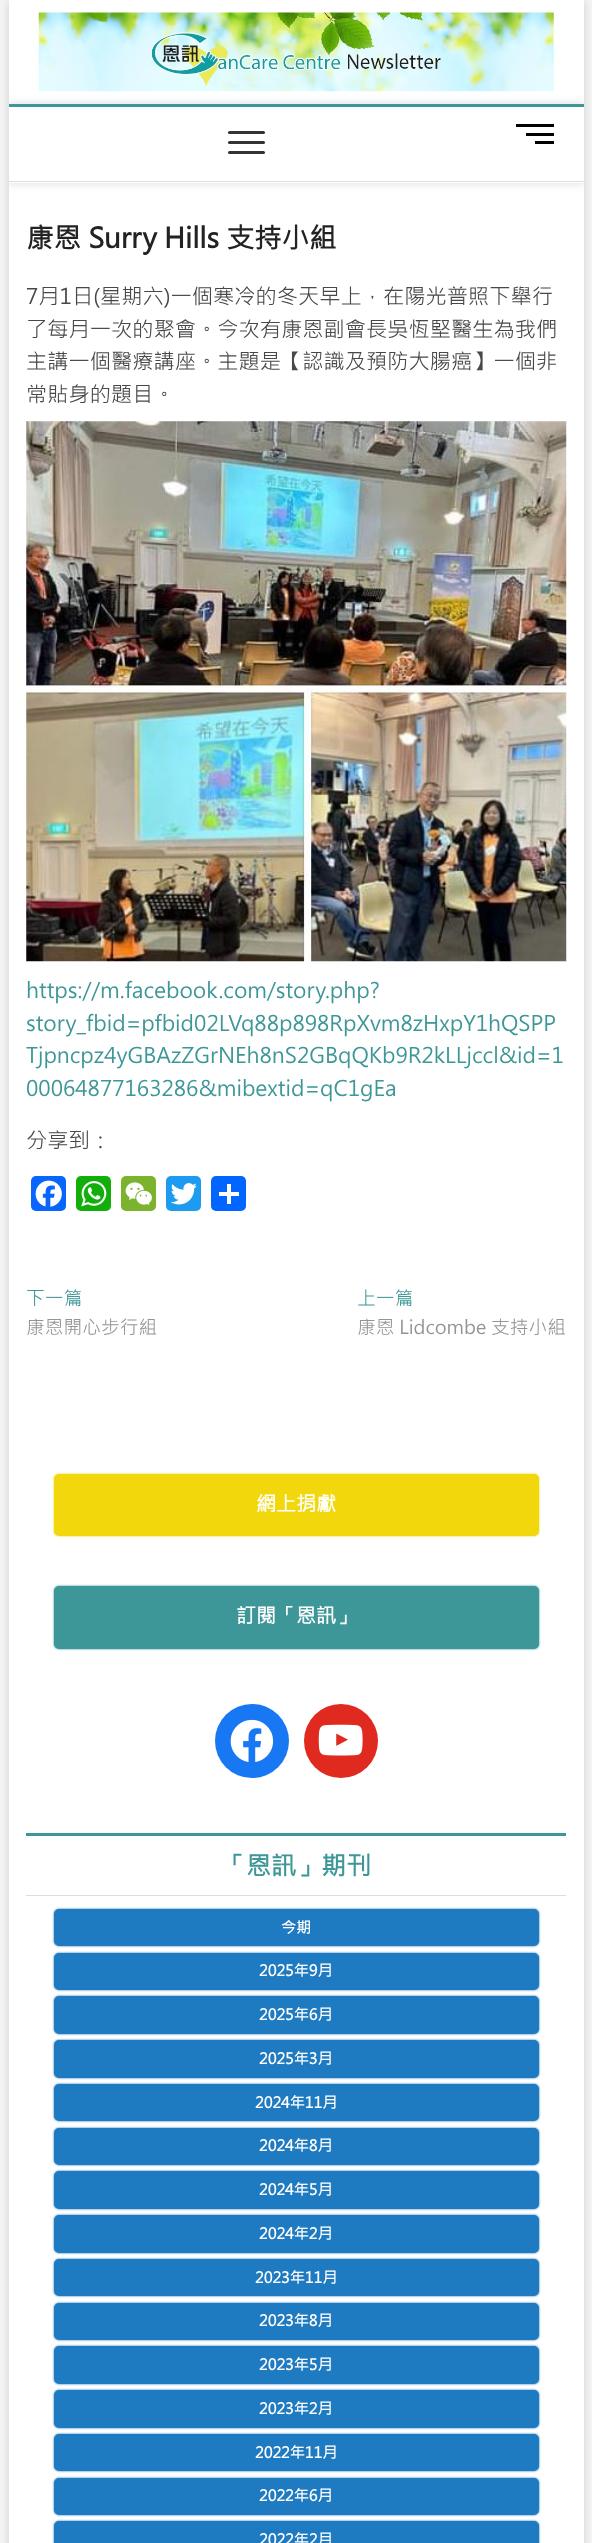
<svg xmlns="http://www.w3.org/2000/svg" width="592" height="2543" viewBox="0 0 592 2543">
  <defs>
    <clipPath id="clip1"><path d="M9 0h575v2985H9z"/></clipPath>
  </defs>
  <rect width="100%" height="100%" fill="#f4f4f4"/>
  <path d="M9 1h575v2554H9z" fill="#00000026" filter="blur(4px)"/>
  <path d="M9 0h575v2543H9z" fill="#fff"/>
  <image x="38" y="12" width="516" height="80" href="img/1.png"/>
  <g clip-path="url(#clip1)">
    <path d="M9 104h575v79H9z" fill="#00000026" filter="blur(5px)"/>
  </g>
  <path d="M9 107h575v76H9z" fill="#fff"/>
  <path d="M9 104h575v3H9z" fill="#3d9697"/>
  <path d="M9 181h575v1H9z" fill="#ddd"/>
  <rect x="228" y="141" width="37" height="3" rx="1.5" fill="#333"/>
  <rect x="228" y="131" width="37" height="3" rx="1.5" fill="#333"/>
  <rect x="228" y="151" width="37" height="3" rx="1.5" fill="#333"/>
  <path d="M526 133h28v3H526z" fill="#000"/>
  <path d="M516 124h38v3H516z" fill="#000"/>
  <path d="M535 141h19v3H535z" fill="#000"/>
  <image x="26" y="421" width="541" height="541" href="img/2.png"/>
  <rect x="31" y="1176" width="35" height="35" rx="5" fill="#0866ff"/>
  <image x="35" y="1180" width="27" height="27" href="img/3.png"/>
  <rect x="76" y="1176" width="35" height="35" rx="5" fill="#12af0a"/>
  <image x="81" y="1181" width="26" height="26" href="img/4.png"/>
  <rect x="121" y="1176" width="35" height="35" rx="5" fill="#7bb32e"/>
  <image x="125" y="1182" width="27" height="23" href="img/5.png"/>
  <rect x="166" y="1176" width="35" height="35" rx="5" fill="#1d9bf0"/>
  <image x="170" y="1183" width="27" height="22" href="img/6.png"/>
  <rect x="211" y="1176" width="35" height="35" rx="5" fill="#0166ff"/>
  <path d="M227 1184h4v20H227z" fill="#fff"/>
  <path d="M219 1192h20v4H219z" fill="#fff"/>
  <rect x="54" y="1474" width="485" height="62" rx="5" fill="#f2d70c" filter="blur(1px)"/>
  <rect x="55.5" y="1475.5" width="482" height="59" rx="3.5" fill="#f2d70c" stroke="#f2d70c" stroke-width="3"/>
  <rect x="54" y="1586" width="485" height="63" rx="5" fill="#3d9697" filter="blur(1px)"/>
  <rect x="55.5" y="1587.5" width="482" height="60" rx="3.5" fill="#3d9697" stroke="#3d9697" stroke-width="3"/>
  <circle cx="252" cy="1741" r="37" fill="#1877f2"/>
  <image x="230" y="1719" width="44" height="43" href="img/7.png"/>
  <circle cx="341" cy="1741" r="37" fill="#e02a20"/>
  <image x="318" y="1724" width="45" height="32" href="img/8.png"/>
  <path d="M26 1833h540v3H26z" fill="#3d9697"/>
  <path d="M26 1895h540v1H26z" fill="#ddd"/>
  <rect x="54" y="1909" width="485" height="37" rx="5" fill="#1f7bc1" filter="blur(1px)"/>
  <rect x="55.5" y="1910.5" width="482" height="34" rx="3.5" fill="#1f7bc1" stroke="#1f7bc1" stroke-width="3"/>
  <rect x="54" y="1953" width="485" height="37" rx="5" fill="#1f7bc1" filter="blur(1px)"/>
  <rect x="55.5" y="1954.5" width="482" height="34" rx="3.5" fill="#1f7bc1" stroke="#1f7bc1" stroke-width="3"/>
  <rect x="54" y="1996" width="485" height="38" rx="5" fill="#1f7bc1" filter="blur(1px)"/>
  <rect x="55.5" y="1997.5" width="482" height="35" rx="3.5" fill="#1f7bc1" stroke="#1f7bc1" stroke-width="3"/>
  <rect x="54" y="2040" width="485" height="38" rx="5" fill="#1f7bc1" filter="blur(1px)"/>
  <rect x="55.5" y="2041.5" width="482" height="35" rx="3.5" fill="#1f7bc1" stroke="#1f7bc1" stroke-width="3"/>
  <rect x="54" y="2084" width="485" height="37" rx="5" fill="#1f7bc1" filter="blur(1px)"/>
  <rect x="55.5" y="2085.5" width="482" height="34" rx="3.5" fill="#1f7bc1" stroke="#1f7bc1" stroke-width="3"/>
  <rect x="54" y="2128" width="485" height="37" rx="5" fill="#1f7bc1" filter="blur(1px)"/>
  <rect x="55.5" y="2129.5" width="482" height="34" rx="3.5" fill="#1f7bc1" stroke="#1f7bc1" stroke-width="3"/>
  <rect x="54" y="2171" width="485" height="38" rx="5" fill="#1f7bc1" filter="blur(1px)"/>
  <rect x="55.5" y="2172.5" width="482" height="35" rx="3.5" fill="#1f7bc1" stroke="#1f7bc1" stroke-width="3"/>
  <rect x="54" y="2215" width="485" height="38" rx="5" fill="#1f7bc1" filter="blur(1px)"/>
  <rect x="55.5" y="2216.5" width="482" height="35" rx="3.5" fill="#1f7bc1" stroke="#1f7bc1" stroke-width="3"/>
  <rect x="54" y="2259" width="485" height="37" rx="5" fill="#1f7bc1" filter="blur(1px)"/>
  <rect x="55.5" y="2260.5" width="482" height="34" rx="3.5" fill="#1f7bc1" stroke="#1f7bc1" stroke-width="3"/>
  <rect x="54" y="2303" width="485" height="37" rx="5" fill="#1f7bc1" filter="blur(1px)"/>
  <rect x="55.5" y="2304.5" width="482" height="34" rx="3.5" fill="#1f7bc1" stroke="#1f7bc1" stroke-width="3"/>
  <rect x="54" y="2346" width="485" height="38" rx="5" fill="#1f7bc1" filter="blur(1px)"/>
  <rect x="55.5" y="2347.5" width="482" height="35" rx="3.5" fill="#1f7bc1" stroke="#1f7bc1" stroke-width="3"/>
  <rect x="54" y="2390" width="485" height="38" rx="5" fill="#1f7bc1" filter="blur(1px)"/>
  <rect x="55.5" y="2391.5" width="482" height="35" rx="3.5" fill="#1f7bc1" stroke="#1f7bc1" stroke-width="3"/>
  <rect x="54" y="2434" width="485" height="37" rx="5" fill="#1f7bc1" filter="blur(1px)"/>
  <rect x="55.5" y="2435.5" width="482" height="34" rx="3.5" fill="#1f7bc1" stroke="#1f7bc1" stroke-width="3"/>
  <rect x="54" y="2478" width="485" height="37" rx="5" fill="#1f7bc1" filter="blur(1px)"/>
  <rect x="55.5" y="2479.5" width="482" height="34" rx="3.5" fill="#1f7bc1" stroke="#1f7bc1" stroke-width="3"/>
  <rect x="54" y="2521" width="485" height="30" rx="5" fill="#1f7bc1" filter="blur(1px)"/>
  <rect x="55.5" y="2522.5" width="482" height="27" rx="3.5" fill="#1f7bc1" stroke="#1f7bc1" stroke-width="3"/>
  <text x="26" y="248" word-spacing="0.5" font-family="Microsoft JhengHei" font-size="27.5" font-weight="bold" fill="#222">康恩 Surry Hills 支持小組</text>
  <g font-family="Microsoft JhengHei" font-size="21.25" fill="#484848">
    <text x="26" y="304">7月1日(星期六)一個寒冷的冬天早上，在陽光普照下舉行</text>
    <text x="26" y="337">了每月一次的聚會。今次有康恩副會長吳恆堅醫生為我們</text>
    <text x="26" y="369">主講一個醫療講座。主題是【認識及預防大腸癌】一個非</text>
    <text x="26" y="402">常貼身的題目。</text>
  </g>
  <g font-family="Microsoft JhengHei" font-size="21.25" fill="#3d9697">
    <text x="26" y="998">https://m.facebook.com/story.php?</text>
    <text x="26" y="1031">story_fbid=pfbid02LVq88p898RpXvm8zHxpY1hQSPP</text>
    <text x="26" y="1063">Tjpncpz4yGBAzZGrNEh8nS2GBqQKb9R2kLLjccl&amp;id=1</text>
    <text x="26" y="1096">00064877163286&amp;mibextid=qC1gEa</text>
  </g>
  <text x="26" y="1148" font-family="Microsoft JhengHei" font-size="21.25" fill="#484848">分享到：</text>
  <text x="26" y="1305" font-family="Microsoft JhengHei" font-size="18.75" fill="#3d9697">下一篇</text>
  <text x="26" y="1334" font-family="Microsoft JhengHei" font-size="18.75" fill="#949494">康恩開心步行組</text>
  <text x="357" y="1305" font-family="Microsoft JhengHei" font-size="18.75" fill="#3d9697">上一篇</text>
  <text x="357" y="1334" font-family="Microsoft JhengHei" font-size="18.75" fill="#949494">康恩 Lidcombe 支持小組</text>
  <g font-family="Microsoft JhengHei" font-size="20" font-weight="bold" fill="#fff">
    <text x="256" y="1511">網上捐獻</text>
    <text x="236" y="1623">訂閱「恩訊」</text>
  </g>
  <text x="221" y="1875" font-family="Microsoft JhengHei" font-size="25" font-weight="bold" fill="#3d9697">「恩訊」期刊</text>
  <g font-family="Microsoft JhengHei" font-size="15" font-weight="bold" fill="#fff">
    <text x="281" y="1933">今期</text>
    <text x="259" y="1976">2025年9月</text>
    <text x="259" y="2020">2025年6月</text>
    <text x="259" y="2064">2025年3月</text>
    <text x="255" y="2108">2024年11月</text>
    <text x="259" y="2151">2024年8月</text>
    <text x="259" y="2195">2024年5月</text>
    <text x="259" y="2239">2024年2月</text>
    <text x="255" y="2283">2023年11月</text>
    <text x="259" y="2326">2023年8月</text>
    <text x="259" y="2370">2023年5月</text>
    <text x="259" y="2414">2023年2月</text>
    <text x="255" y="2458">2022年11月</text>
    <text x="259" y="2501">2022年6月</text>
    <text x="259" y="2545">2022年2月</text>
  </g>
</svg>
